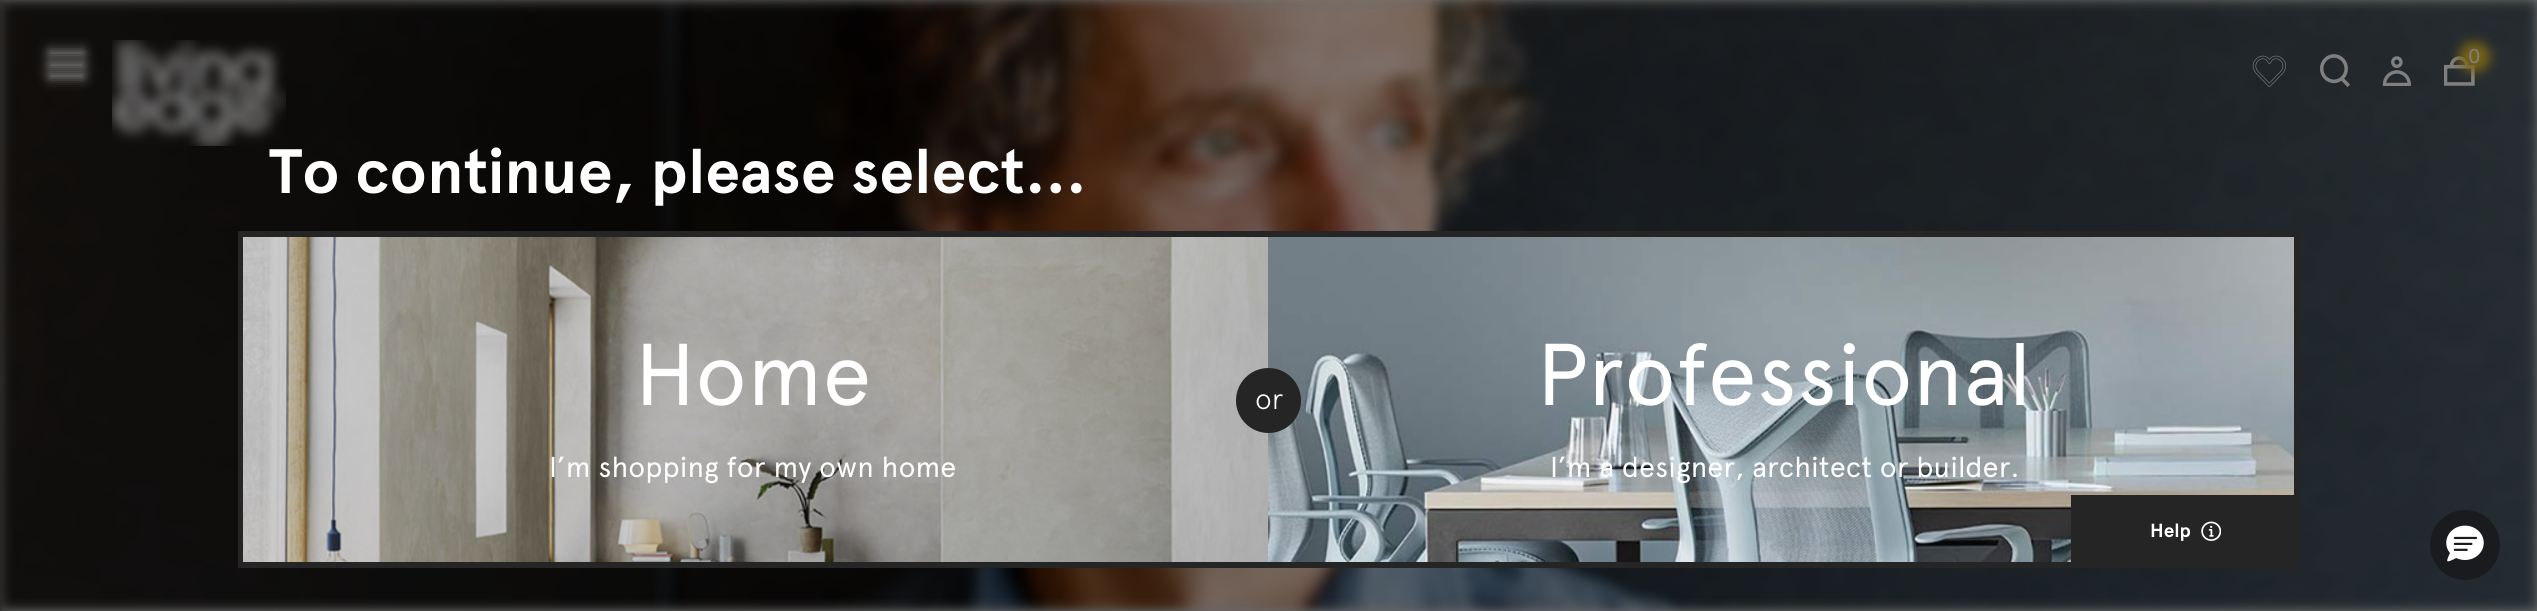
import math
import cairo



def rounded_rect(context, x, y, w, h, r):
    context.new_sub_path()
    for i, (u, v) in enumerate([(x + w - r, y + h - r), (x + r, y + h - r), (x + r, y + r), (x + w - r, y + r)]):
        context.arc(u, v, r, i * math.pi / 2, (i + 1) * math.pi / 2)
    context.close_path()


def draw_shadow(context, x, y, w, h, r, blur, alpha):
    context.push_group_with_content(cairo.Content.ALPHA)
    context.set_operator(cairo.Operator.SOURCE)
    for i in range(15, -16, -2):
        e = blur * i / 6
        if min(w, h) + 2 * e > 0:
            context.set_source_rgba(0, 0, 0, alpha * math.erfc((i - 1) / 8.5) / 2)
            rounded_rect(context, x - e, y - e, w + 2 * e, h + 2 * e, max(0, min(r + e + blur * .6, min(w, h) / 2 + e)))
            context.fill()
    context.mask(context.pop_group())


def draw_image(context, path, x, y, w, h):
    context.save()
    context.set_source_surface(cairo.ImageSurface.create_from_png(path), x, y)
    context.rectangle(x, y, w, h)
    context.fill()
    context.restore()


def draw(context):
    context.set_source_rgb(128 / 255, 128 / 255, 128 / 255)
    context.paint()
    context.set_source_rgb(99 / 255, 100 / 255, 97 / 255)
    draw_shadow(context, 0, 0, 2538, 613, 0, 6, 1)
    draw_image(context, "images/1.png", 0, 0, 2537, 611)
    draw_shadow(context, 0, 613, 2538, 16, 0, 6, 1)
    context.set_source_rgb(15 / 255, 15 / 255, 15 / 255)
    draw_shadow(context, -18, 0, 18, 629, 0, 6, 1)
    context.set_source_rgb(128 / 255, 128 / 255, 128 / 255)
    draw_shadow(context, 50, 74, 33, 4, 0, 6, 1)
    context.save()
    context.set_fill_rule(cairo.FillRule.EVEN_ODD)
    context.new_path()
    context.move_to(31, 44)
    context.line_to(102, 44)
    context.line_to(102, 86)
    context.line_to(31, 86)
    context.close_path()
    context.move_to(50, 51)
    context.line_to(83, 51)
    context.line_to(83, 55)
    context.line_to(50, 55)
    context.close_path()
    context.clip()
    draw_shadow(context, 50, 63, 33, 4, 0, 6, 1)
    context.restore()
    draw_shadow(context, 50, 51, 33, 4, 0, 6, 1)
    draw_image(context, "images/2.png", 112, 40, 174, 106)
    draw_image(context, "images/3.png", 2252, 55, 34, 32)
    draw_image(context, "images/4.png", 2320, 54, 30, 33)
    draw_image(context, "images/5.png", 2382, 56, 29, 30)
    draw_image(context, "images/6.png", 2444, 56, 31, 30)
    context.set_source_rgb(121 / 255, 101 / 255, 24 / 255)
    draw_shadow(context, 2460, 43, 29, 28, 14, 6, 1)
    context.set_source_rgb(37 / 255, 37 / 255, 37 / 255)
    context.rectangle(238, 231, 2062, 337)
    context.fill()
    draw_image(context, "images/7.png", 243, 237, 1025, 325)
    draw_image(context, "images/8.png", 1268, 237, 1026, 325)
    context.arc(1268.5, 400.5, 32.5, 0, 2 * math.pi)
    context.fill()
    context.rectangle(2071, 495, 223, 67)
    context.fill()
    draw_image(context, "images/9.png", 2201, 521, 20, 20)
    context.set_source_rgb(26 / 255, 27 / 255, 30 / 255)
    context.arc(2465, 545, 35, 0, 2 * math.pi)
    context.fill()
    draw_image(context, "images/10.png", 2446, 525, 38, 37)
    context.select_font_face("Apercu")
    context.set_font_size(20)
    context.set_source_rgb(128 / 255, 128 / 255, 128 / 255)
    context.move_to(2468, 63)
    context.show_text("0")
    context.select_font_face("Apercu", cairo.FontSlant.NORMAL, cairo.FontWeight.BOLD)
    context.set_font_size(62.5)
    context.set_source_rgb(1, 1, 1)
    context.move_to(269, 193)
    context.show_text("To continue, please select...")
    context.select_font_face("Apercu")
    context.set_font_size(87.5)
    context.move_to(635, 405)
    context.show_text("Home")
    context.set_font_size(28.75)
    context.move_to(549, 477)
    context.show_text("I’m shopping for my own home")
    context.select_font_face("Apercu Light")
    context.move_to(1255, 409)
    context.show_text("or")
    context.select_font_face("Apercu")
    context.set_font_size(87.5)
    context.move_to(1537, 405)
    context.show_text("Professional")
    context.set_font_size(28.75)
    context.move_to(1550, 477)
    context.show_text("I’m a designer, architect or builder.")
    context.select_font_face("Apercu", cairo.FontSlant.NORMAL, cairo.FontWeight.BOLD)
    context.set_font_size(19)
    context.move_to(2150, 537)
    context.show_text("Help")


surface = cairo.ImageSurface(cairo.Format.RGB24, 2537, 611)
context = cairo.Context(surface)
options = cairo.FontOptions()
options.set_hint_metrics(cairo.HintMetrics.OFF)
options.set_hint_style(cairo.HintStyle.NONE)
context.set_font_options(options)
context.set_miter_limit(4)
draw(context)
surface.write_to_png("out.png")
